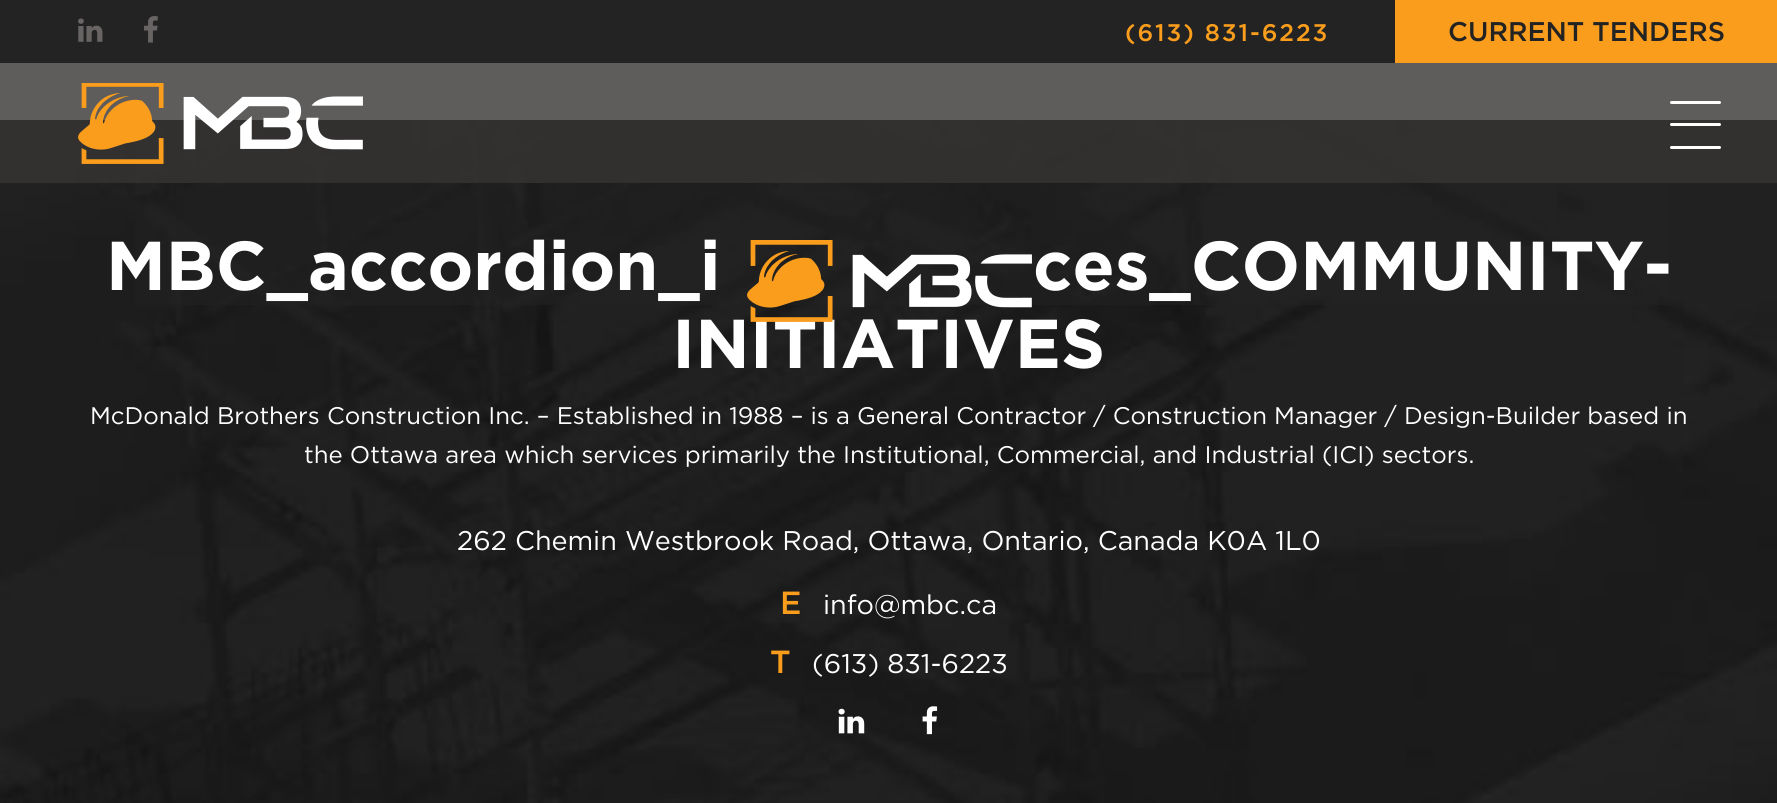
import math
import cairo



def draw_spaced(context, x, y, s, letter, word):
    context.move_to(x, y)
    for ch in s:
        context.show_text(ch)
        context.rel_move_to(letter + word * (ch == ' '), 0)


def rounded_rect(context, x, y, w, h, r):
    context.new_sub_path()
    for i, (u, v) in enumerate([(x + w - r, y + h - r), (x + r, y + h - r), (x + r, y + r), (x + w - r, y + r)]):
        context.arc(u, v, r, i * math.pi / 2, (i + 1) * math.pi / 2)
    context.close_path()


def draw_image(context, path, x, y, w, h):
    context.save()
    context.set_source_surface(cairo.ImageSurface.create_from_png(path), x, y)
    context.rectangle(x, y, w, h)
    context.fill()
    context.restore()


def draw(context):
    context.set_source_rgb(1, 1, 1)
    context.paint()
    context.set_source_rgb(35 / 255, 35 / 255, 35 / 255)
    context.rectangle(0, 0, 1395, 63)
    context.fill()
    draw_image(context, "images/1.png", 78, 18, 25, 24)
    draw_image(context, "images/2.png", 144, 16, 14, 27)
    context.set_source_rgb(250 / 255, 157 / 255, 28 / 255)
    context.rectangle(1395, 0, 382, 63)
    context.fill()
    draw_image(context, "images/4.png", 0, 120, 1777, 683)
    context.set_source_rgba(35 / 255, 35 / 255, 35 / 255, 0.4)
    context.rectangle(135, 120, 1534, 185)
    context.fill()
    context.set_source_rgba(55 / 255, 52 / 255, 52 / 255, 0.8)
    context.rectangle(0, 63, 1777, 120)
    context.fill()
    draw_image(context, "images/3.png", 78, 83, 285, 81)
    context.set_source_rgb(1, 1, 1)
    rounded_rect(context, 1670, 123, 51, 3, 1.5)
    context.fill()
    rounded_rect(context, 1670, 101, 51, 3, 1.5)
    context.fill()
    rounded_rect(context, 1670, 146, 51, 3, 1.5)
    context.fill()
    draw_image(context, "images/6.png", 838, 708, 27, 26)
    draw_image(context, "images/7.png", 922, 706, 16, 29)
    context.select_font_face("Gotham Medium")
    context.set_font_size(24)
    context.set_source_rgb(250 / 255, 157 / 255, 28 / 255)
    draw_spaced(context, 1125, 41, "(613) 831-6223", 1.9, 0)
    context.set_font_size(27)
    context.set_source_rgb(35 / 255, 35 / 255, 35 / 255)
    context.move_to(1448, 41)
    context.show_text("CURRENT TENDERS")
    context.select_font_face("Gotham", cairo.FontSlant.NORMAL, cairo.FontWeight.BOLD)
    context.set_font_size(69)
    context.set_source_rgb(1, 1, 1)
    context.move_to(106, 290)
    context.show_text("MBC_accordion_i")
    context.move_to(1033, 290)
    context.show_text("ces_COMMUNITY-")
    context.move_to(672, 368)
    context.show_text("INITIATIVES")
    draw_image(context, "images/5.png", 747, 240, 285, 82)
    context.select_font_face("Gotham")
    context.set_font_size(24)
    context.move_to(90, 424)
    context.show_text("McDonald Brothers Construction Inc. – Established in 1988 – is a General Contractor / Construction Manager / Design-Builder based in")
    context.move_to(304, 463)
    context.show_text("the Ottawa area which services primarily the Institutional, Commercial, and Industrial (ICI) sectors.")
    context.set_font_size(27)
    context.move_to(457, 550)
    context.show_text("262 Chemin Westbrook Road, Ottawa, Ontario, Canada K0A 1L0")
    context.select_font_face("Gotham Medium")
    context.set_font_size(32)
    context.set_source_rgb(250 / 255, 157 / 255, 28 / 255)
    context.move_to(780, 614)
    context.show_text("E")
    context.select_font_face("Gotham")
    context.set_font_size(27)
    context.set_source_rgb(1, 1, 1)
    context.move_to(823, 614)
    context.show_text("info@mbc.ca")
    context.select_font_face("Gotham Medium")
    context.set_font_size(32)
    context.set_source_rgb(250 / 255, 157 / 255, 28 / 255)
    context.move_to(770, 673)
    context.show_text("T")
    context.select_font_face("Gotham")
    context.set_font_size(27)
    context.set_source_rgb(1, 1, 1)
    context.move_to(812, 673)
    context.show_text("(613) 831-6223")


surface = cairo.ImageSurface(cairo.Format.RGB24, 1777, 803)
context = cairo.Context(surface)
options = cairo.FontOptions()
options.set_hint_metrics(cairo.HintMetrics.OFF)
options.set_hint_style(cairo.HintStyle.NONE)
context.set_font_options(options)
context.set_miter_limit(4)
draw(context)
surface.write_to_png("out.png")
